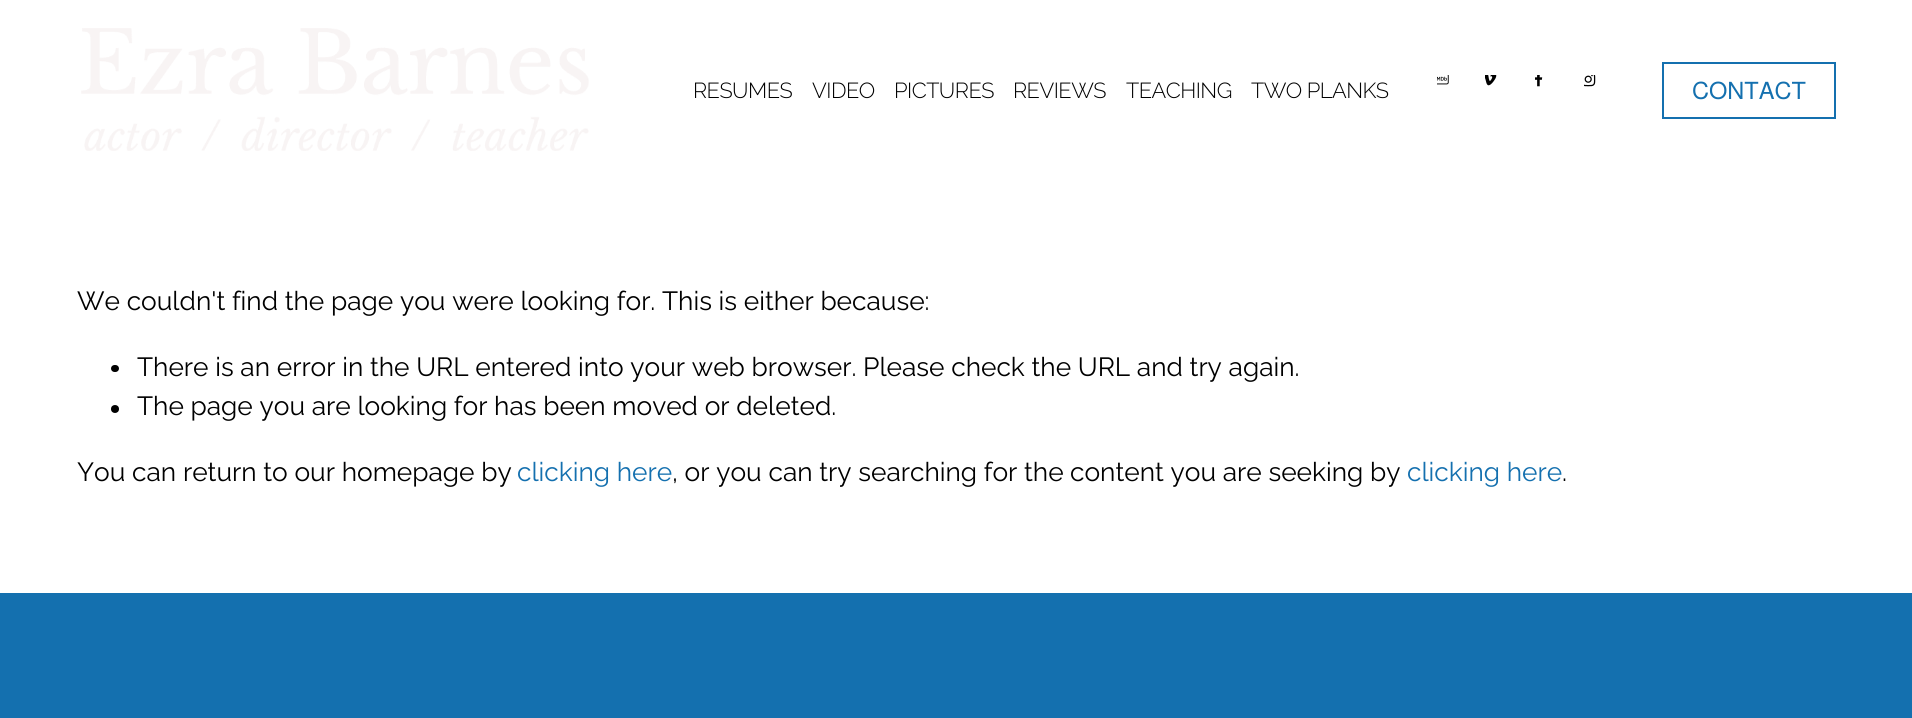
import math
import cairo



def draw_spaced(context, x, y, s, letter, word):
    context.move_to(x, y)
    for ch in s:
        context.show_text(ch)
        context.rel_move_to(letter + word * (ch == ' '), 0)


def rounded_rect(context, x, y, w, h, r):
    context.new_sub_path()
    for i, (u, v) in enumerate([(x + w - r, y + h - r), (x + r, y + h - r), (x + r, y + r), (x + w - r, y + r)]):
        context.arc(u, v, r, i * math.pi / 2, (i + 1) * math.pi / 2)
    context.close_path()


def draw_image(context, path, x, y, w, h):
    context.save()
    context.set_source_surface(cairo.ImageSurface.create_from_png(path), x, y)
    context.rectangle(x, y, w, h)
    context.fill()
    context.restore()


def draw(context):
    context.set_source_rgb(1, 1, 1)
    context.paint()
    draw_image(context, "images/1.png", 81, 28, 508, 123)
    draw_image(context, "images/2.png", 1437, 75, 12, 10)
    draw_image(context, "images/3.png", 1485, 75, 12, 11)
    draw_image(context, "images/4.png", 1535, 75, 8, 12)
    draw_image(context, "images/5.png", 1584, 75, 12, 12)
    context.rectangle(1663, 63, 172, 55)
    context.set_source_rgb(20 / 255, 112 / 255, 175 / 255)
    context.stroke()
    context.set_source_rgb(0, 0, 0)
    rounded_rect(context, 111, 365, 8, 7, 3.5)
    context.fill()
    context.arc(115, 409, 4, 0, 2 * math.pi)
    context.fill()
    context.set_source_rgb(20 / 255, 112 / 255, 175 / 255)
    context.rectangle(0, 593, 1912, 125)
    context.fill()
    context.select_font_face("Raleway Light")
    context.set_font_size(21.75)
    context.set_source_rgb(0, 0, 0)
    draw_spaced(context, 693, 98, "RESUMES", -0.5, 0)
    draw_spaced(context, 812, 98, "VIDEO", -0.5, 0)
    draw_spaced(context, 894, 98, "PICTURES", -0.5, 0)
    draw_spaced(context, 1013, 98, "REVIEWS", -0.5, 0)
    draw_spaced(context, 1126, 98, "TEACHING", -0.5, 0)
    draw_spaced(context, 1251, 98, "TWO PLANKS", -0.5, 0)
    context.select_font_face("Almarai")
    context.set_font_size(24)
    context.set_source_rgb(20 / 255, 112 / 255, 175 / 255)
    context.move_to(1692, 99)
    context.show_text("CONTACT")
    context.select_font_face("Raleway")
    context.set_font_size(26.3)
    context.set_source_rgb(0, 0, 0)
    context.move_to(77, 310)
    context.show_text("We couldn't find the page you were looking for. This is either because:")
    context.move_to(137, 376)
    context.show_text("There is an error in the URL entered into your web browser. Please check the URL and try again.")
    context.move_to(137, 415)
    context.show_text("The page you are looking for has been moved or deleted.")
    context.move_to(77, 481)
    context.show_text("You can return to our homepage by")
    context.set_source_rgb(20 / 255, 112 / 255, 175 / 255)
    context.move_to(517, 481)
    context.show_text("clicking here")
    context.set_source_rgb(0, 0, 0)
    context.move_to(672, 481)
    context.show_text(", or you can try searching for the")
    context.move_to(1070, 481)
    context.show_text("content you are seeking by")
    context.set_source_rgb(20 / 255, 112 / 255, 175 / 255)
    context.move_to(1407, 481)
    context.show_text("clicking here")
    context.set_source_rgb(0, 0, 0)
    context.move_to(1562, 481)
    context.show_text(".")


surface = cairo.ImageSurface(cairo.Format.RGB24, 1912, 718)
context = cairo.Context(surface)
options = cairo.FontOptions()
options.set_hint_metrics(cairo.HintMetrics.OFF)
options.set_hint_style(cairo.HintStyle.NONE)
context.set_font_options(options)
context.set_miter_limit(4)
draw(context)
surface.write_to_png("out.png")
